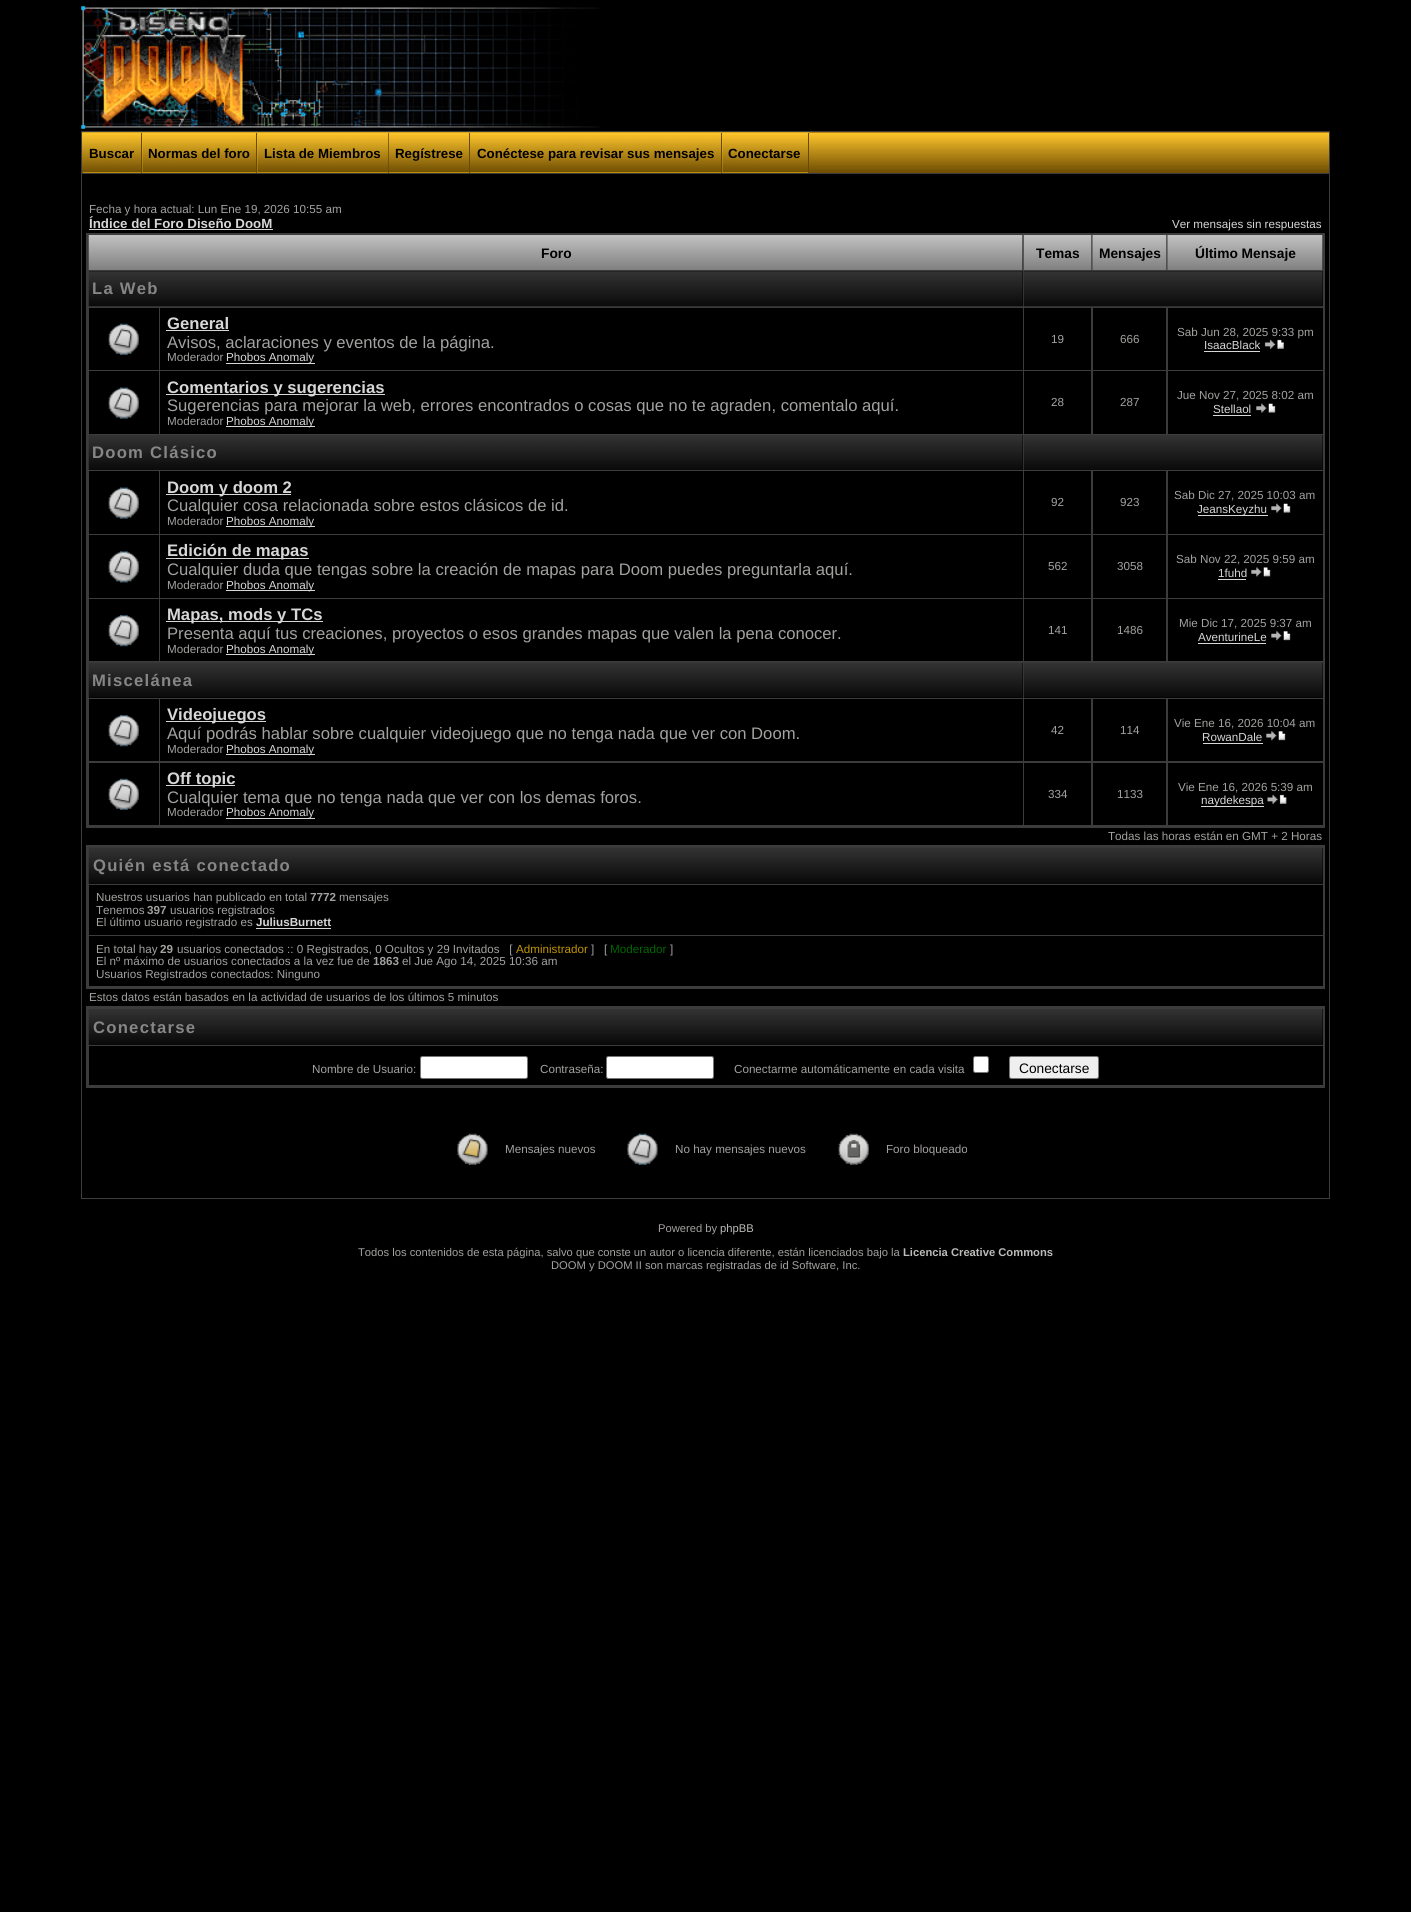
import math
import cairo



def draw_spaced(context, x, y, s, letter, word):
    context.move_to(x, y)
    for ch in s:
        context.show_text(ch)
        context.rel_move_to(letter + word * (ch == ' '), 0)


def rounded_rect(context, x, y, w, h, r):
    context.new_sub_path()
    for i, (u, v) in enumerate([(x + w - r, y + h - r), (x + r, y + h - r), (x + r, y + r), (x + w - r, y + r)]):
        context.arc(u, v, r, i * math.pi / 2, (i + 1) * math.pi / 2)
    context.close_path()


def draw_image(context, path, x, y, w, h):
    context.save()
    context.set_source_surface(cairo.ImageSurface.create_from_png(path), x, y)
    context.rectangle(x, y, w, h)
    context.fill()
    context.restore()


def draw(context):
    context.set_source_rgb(0, 0, 0)
    context.paint()
    draw_image(context, "images/1.png", 81, 6, 519, 123)
    draw_image(context, "images/2.png", 82, 132, 1247, 41)
    context.rectangle(81.5, 131.5, 1248, 42)
    context.set_source_rgb(60 / 255, 60 / 255, 60 / 255)
    context.set_line_width(1)
    context.stroke()
    context.set_source_rgb(1, 204 / 255, 0)
    context.rectangle(83, 133, 175, 40)
    context.fill()
    draw_image(context, "images/3.png", 82, 132, 61, 41)
    draw_image(context, "images/4.png", 142, 132, 116, 41)
    context.rectangle(258, 172, 130, 1)
    context.fill()
    draw_image(context, "images/5.png", 257, 132, 132, 41)
    context.set_source_rgb(107 / 255, 73 / 255, 1 / 255)
    context.rectangle(388, 133, 1, 40)
    context.fill()
    context.set_source_rgb(1, 204 / 255, 0)
    context.rectangle(389, 172, 80, 1)
    context.fill()
    draw_image(context, "images/6.png", 388, 132, 82, 41)
    context.rectangle(470, 133, 253, 40)
    context.fill()
    draw_image(context, "images/7.png", 470, 132, 253, 41)
    context.rectangle(723, 172, 85, 1)
    context.fill()
    draw_image(context, "images/8.png", 722, 132, 87, 41)
    context.set_source_rgb(107 / 255, 73 / 255, 1 / 255)
    context.rectangle(141, 133, 1, 40)
    context.fill()
    context.rectangle(256, 133, 1, 40)
    context.fill()
    context.rectangle(469, 133, 1, 40)
    context.fill()
    context.rectangle(721, 133, 1, 40)
    context.fill()
    context.rectangle(808, 133, 1, 40)
    context.fill()
    context.set_source_rgb(60 / 255, 60 / 255, 60 / 255)
    context.rectangle(1329, 174, 1, 1025)
    context.fill()
    context.rectangle(81, 1198, 1249, 1)
    context.fill()
    context.rectangle(81, 174, 1, 1025)
    context.fill()
    context.set_source_rgb(215 / 255, 215 / 255, 215 / 255)
    context.rectangle(89, 229, 184, 1)
    context.fill()
    context.set_source_rgb(60 / 255, 60 / 255, 60 / 255)
    context.rectangle(86, 233, 1239, 595)
    context.fill()
    context.set_source_rgb(0, 0, 0)
    context.rectangle(1022, 235, 1, 35)
    context.fill()
    draw_image(context, "images/9.png", 88, 235, 935, 35)
    draw_image(context, "images/10.png", 1023, 235, 69, 35)
    draw_image(context, "images/11.png", 1092, 235, 75, 35)
    context.rectangle(1322, 235, 1, 35)
    context.fill()
    draw_image(context, "images/12.png", 1167, 235, 156, 35)
    context.rectangle(89, 271, 934, 35)
    context.fill()
    draw_image(context, "images/13.png", 88, 271, 935, 36)
    context.rectangle(1024, 271, 299, 35)
    context.fill()
    draw_image(context, "images/14.png", 1023, 271, 300, 36)
    context.rectangle(89, 308, 70, 62)
    context.fill()
    draw_image(context, "images/15.png", 108, 323, 31, 32)
    context.rectangle(160, 308, 863, 62)
    context.fill()
    context.set_source_rgb(215 / 255, 215 / 255, 215 / 255)
    context.rectangle(166, 330, 63, 1)
    context.fill()
    context.rectangle(226, 363, 89, 1)
    context.fill()
    context.set_source_rgb(0, 0, 0)
    context.rectangle(1024, 308, 67, 62)
    context.fill()
    context.rectangle(1093, 308, 73, 62)
    context.fill()
    context.rectangle(1168, 308, 155, 62)
    context.fill()
    context.set_source_rgb(215 / 255, 215 / 255, 215 / 255)
    context.rectangle(1204, 351, 56, 1)
    context.fill()
    draw_image(context, "images/16.png", 1264, 339, 20, 10)
    context.set_source_rgb(0, 0, 0)
    context.rectangle(89, 371, 70, 63)
    context.fill()
    draw_image(context, "images/17.png", 108, 387, 31, 32)
    context.rectangle(160, 371, 863, 63)
    context.fill()
    context.set_source_rgb(215 / 255, 215 / 255, 215 / 255)
    context.rectangle(166, 394, 219, 1)
    context.fill()
    context.rectangle(226, 426, 89, 1)
    context.fill()
    context.set_source_rgb(0, 0, 0)
    context.rectangle(1024, 371, 67, 63)
    context.fill()
    context.rectangle(1093, 371, 73, 63)
    context.fill()
    context.rectangle(1168, 371, 155, 63)
    context.fill()
    context.set_source_rgb(215 / 255, 215 / 255, 215 / 255)
    context.rectangle(1213, 415, 38, 1)
    context.fill()
    draw_image(context, "images/18.png", 1256, 403, 20, 10)
    context.set_source_rgb(0, 0, 0)
    context.rectangle(1022, 435, 1, 35)
    context.fill()
    draw_image(context, "images/19.png", 88, 435, 935, 35)
    context.rectangle(1322, 435, 1, 35)
    context.fill()
    draw_image(context, "images/20.png", 1023, 435, 300, 35)
    context.rectangle(89, 471, 70, 63)
    context.fill()
    draw_image(context, "images/17.png", 108, 487, 31, 32)
    context.rectangle(160, 471, 863, 63)
    context.fill()
    context.set_source_rgb(215 / 255, 215 / 255, 215 / 255)
    context.rectangle(166, 494, 125, 1)
    context.fill()
    context.rectangle(226, 526, 89, 1)
    context.fill()
    context.set_source_rgb(0, 0, 0)
    context.rectangle(1024, 471, 67, 63)
    context.fill()
    context.rectangle(1093, 471, 73, 63)
    context.fill()
    context.rectangle(1168, 471, 155, 63)
    context.fill()
    context.set_source_rgb(215 / 255, 215 / 255, 215 / 255)
    context.rectangle(1198, 515, 70, 1)
    context.fill()
    draw_image(context, "images/21.png", 1271, 503, 20, 10)
    context.set_source_rgb(0, 0, 0)
    context.rectangle(89, 535, 70, 63)
    context.fill()
    draw_image(context, "images/22.png", 108, 551, 31, 32)
    context.rectangle(160, 535, 863, 63)
    context.fill()
    context.set_source_rgb(215 / 255, 215 / 255, 215 / 255)
    context.rectangle(166, 558, 143, 1)
    context.fill()
    context.rectangle(226, 590, 89, 1)
    context.fill()
    context.set_source_rgb(0, 0, 0)
    context.rectangle(1024, 535, 67, 63)
    context.fill()
    context.rectangle(1093, 535, 73, 63)
    context.fill()
    context.rectangle(1168, 535, 155, 63)
    context.fill()
    context.set_source_rgb(215 / 255, 215 / 255, 215 / 255)
    context.rectangle(1218, 579, 28, 1)
    context.fill()
    draw_image(context, "images/23.png", 1251, 567, 20, 10)
    context.set_source_rgb(0, 0, 0)
    context.rectangle(89, 599, 70, 62)
    context.fill()
    draw_image(context, "images/24.png", 108, 615, 31, 32)
    context.rectangle(160, 599, 863, 62)
    context.fill()
    context.set_source_rgb(215 / 255, 215 / 255, 215 / 255)
    context.rectangle(166, 621, 157, 1)
    context.fill()
    context.rectangle(226, 654, 89, 1)
    context.fill()
    context.set_source_rgb(0, 0, 0)
    context.rectangle(1024, 599, 67, 62)
    context.fill()
    context.rectangle(1093, 599, 73, 62)
    context.fill()
    context.rectangle(1168, 599, 155, 62)
    context.fill()
    context.set_source_rgb(215 / 255, 215 / 255, 215 / 255)
    context.rectangle(1198, 643, 68, 1)
    context.fill()
    draw_image(context, "images/25.png", 1271, 631, 20, 10)
    context.set_source_rgb(0, 0, 0)
    context.rectangle(89, 663, 934, 35)
    context.fill()
    draw_image(context, "images/26.png", 88, 662, 935, 36)
    context.rectangle(1024, 663, 299, 35)
    context.fill()
    draw_image(context, "images/27.png", 1023, 662, 300, 36)
    context.rectangle(89, 699, 70, 62)
    context.fill()
    draw_image(context, "images/24.png", 108, 715, 31, 32)
    context.rectangle(160, 699, 863, 62)
    context.fill()
    context.set_source_rgb(215 / 255, 215 / 255, 215 / 255)
    context.rectangle(166, 721, 100, 1)
    context.fill()
    context.rectangle(226, 754, 89, 1)
    context.fill()
    context.set_source_rgb(0, 0, 0)
    context.rectangle(1024, 699, 67, 62)
    context.fill()
    context.rectangle(1093, 699, 73, 62)
    context.fill()
    context.rectangle(1168, 699, 155, 62)
    context.fill()
    context.set_source_rgb(215 / 255, 215 / 255, 215 / 255)
    context.rectangle(1203, 743, 60, 1)
    context.fill()
    draw_image(context, "images/25.png", 1266, 731, 20, 10)
    context.set_source_rgb(0, 0, 0)
    context.rectangle(89, 763, 70, 62)
    context.fill()
    draw_image(context, "images/28.png", 108, 778, 31, 32)
    context.rectangle(160, 763, 863, 62)
    context.fill()
    context.set_source_rgb(215 / 255, 215 / 255, 215 / 255)
    context.rectangle(166, 785, 69, 1)
    context.fill()
    context.rectangle(226, 818, 89, 1)
    context.fill()
    context.set_source_rgb(0, 0, 0)
    context.rectangle(1024, 763, 67, 62)
    context.fill()
    context.rectangle(1093, 763, 73, 62)
    context.fill()
    context.rectangle(1168, 763, 155, 62)
    context.fill()
    context.set_source_rgb(215 / 255, 215 / 255, 215 / 255)
    context.rectangle(1201, 806, 63, 1)
    context.fill()
    draw_image(context, "images/29.png", 1267, 794, 20, 10)
    context.set_source_rgb(60 / 255, 60 / 255, 60 / 255)
    context.rectangle(86, 845, 1239, 144)
    context.fill()
    context.set_source_rgb(0, 0, 0)
    context.rectangle(89, 848, 1234, 36)
    context.fill()
    draw_image(context, "images/30.png", 88, 847, 1235, 37)
    context.rectangle(89, 885, 1234, 50)
    context.fill()
    context.set_source_rgb(215 / 255, 215 / 255, 215 / 255)
    context.rectangle(256, 928, 75, 1)
    context.fill()
    context.set_source_rgb(0, 0, 0)
    context.rectangle(89, 936, 1234, 50)
    context.fill()
    context.set_source_rgb(60 / 255, 60 / 255, 60 / 255)
    context.rectangle(86, 1006, 1239, 82)
    context.fill()
    context.set_source_rgb(0, 0, 0)
    context.rectangle(1322, 1009, 1, 36)
    context.fill()
    draw_image(context, "images/31.png", 88, 1009, 1235, 36)
    context.rectangle(89, 1046, 1234, 39)
    context.fill()
    context.set_source_rgb(1, 1, 1)
    rounded_rect(context, 420.5, 1056.5, 107, 22, 2)
    context.fill_preserve()
    context.set_source_rgb(118 / 255, 118 / 255, 118 / 255)
    context.stroke()
    context.set_source_rgb(1, 1, 1)
    rounded_rect(context, 606.5, 1056.5, 107, 22, 2)
    context.fill_preserve()
    context.set_source_rgb(118 / 255, 118 / 255, 118 / 255)
    context.stroke()
    context.set_source_rgb(1, 1, 1)
    rounded_rect(context, 973.5, 1056.5, 15, 16, 2)
    context.fill_preserve()
    context.set_source_rgb(118 / 255, 118 / 255, 118 / 255)
    context.stroke()
    context.set_source_rgb(239 / 255, 239 / 255, 239 / 255)
    rounded_rect(context, 1009.5, 1056.5, 89, 22, 2)
    context.fill_preserve()
    context.set_source_rgb(118 / 255, 118 / 255, 118 / 255)
    context.stroke()
    draw_image(context, "images/32.png", 457, 1133, 31, 32)
    draw_image(context, "images/33.png", 627, 1133, 31, 32)
    draw_image(context, "images/34.png", 838, 1133, 31, 32)
    context.select_font_face("Liberation Sans", cairo.FontSlant.NORMAL, cairo.FontWeight.BOLD)
    context.set_font_size(13.3)
    context.set_source_rgb(0, 0, 0)
    context.move_to(89, 158)
    context.show_text("Buscar")
    context.move_to(148, 158)
    context.show_text("Normas del foro")
    context.move_to(264, 158)
    context.show_text("Lista de Miembros")
    context.move_to(395, 158)
    context.show_text("Regístrese")
    context.move_to(477, 158)
    context.show_text("Conéctese para revisar sus mensajes")
    context.move_to(728, 158)
    context.show_text("Conectarse")
    context.select_font_face("Liberation Sans")
    context.set_font_size(11.65)
    context.set_source_rgb(163 / 255, 162 / 255, 160 / 255)
    context.move_to(89, 213)
    context.show_text("Fecha y hora actual: Lun Ene 19, 2026 10:55 am")
    context.select_font_face("Liberation Sans", cairo.FontSlant.NORMAL, cairo.FontWeight.BOLD)
    context.set_font_size(13.3)
    context.set_source_rgb(215 / 255, 215 / 255, 215 / 255)
    context.move_to(89, 228)
    context.show_text("Índice del Foro Diseño DooM")
    context.select_font_face("Liberation Sans")
    context.set_font_size(11.65)
    context.move_to(1172, 228)
    context.show_text("Ver mensajes sin respuestas")
    context.select_font_face("Liberation Sans", cairo.FontSlant.NORMAL, cairo.FontWeight.BOLD)
    context.set_font_size(13.75)
    context.set_source_rgb(0, 0, 0)
    context.move_to(541, 258)
    context.show_text("Foro")
    context.move_to(1036, 258)
    context.show_text("Temas")
    context.move_to(1099, 258)
    context.show_text("Mensajes")
    context.move_to(1195, 258)
    context.show_text("Último Mensaje")
    context.set_font_size(16.65)
    context.set_source_rgb(134 / 255, 134 / 255, 134 / 255)
    draw_spaced(context, 92, 294, "La Web", 1.25, 0)
    context.set_source_rgb(215 / 255, 215 / 255, 215 / 255)
    context.move_to(167, 329)
    context.show_text("General")
    context.select_font_face("Liberation Sans")
    context.set_source_rgb(163 / 255, 162 / 255, 160 / 255)
    context.move_to(167, 348)
    context.show_text("Avisos, aclaraciones y eventos de la página.")
    context.set_font_size(11.65)
    context.move_to(167, 361)
    context.show_text("Moderador")
    context.set_source_rgb(215 / 255, 215 / 255, 215 / 255)
    context.move_to(226, 361)
    context.show_text("Phobos Anomaly")
    context.set_source_rgb(163 / 255, 162 / 255, 160 / 255)
    context.move_to(1051, 343)
    context.show_text("19")
    context.move_to(1120, 343)
    context.show_text("666")
    context.move_to(1177, 336)
    context.show_text("Sab Jun 28, 2025 9:33 pm")
    context.set_source_rgb(215 / 255, 215 / 255, 215 / 255)
    context.move_to(1204, 349)
    context.show_text("IsaacBlack")
    context.select_font_face("Liberation Sans", cairo.FontSlant.NORMAL, cairo.FontWeight.BOLD)
    context.set_font_size(16.65)
    context.move_to(167, 393)
    context.show_text("Comentarios y sugerencias")
    context.select_font_face("Liberation Sans")
    context.set_source_rgb(163 / 255, 162 / 255, 160 / 255)
    context.move_to(167, 411)
    context.show_text("Sugerencias para mejorar la web, errores encontrados o cosas que no te agraden, comentalo aquí.")
    context.set_font_size(11.65)
    context.move_to(167, 425)
    context.show_text("Moderador")
    context.set_source_rgb(215 / 255, 215 / 255, 215 / 255)
    context.move_to(226, 425)
    context.show_text("Phobos Anomaly")
    context.set_source_rgb(163 / 255, 162 / 255, 160 / 255)
    context.move_to(1051, 406)
    context.show_text("28")
    context.move_to(1120, 406)
    context.show_text("287")
    context.move_to(1177, 399)
    context.show_text("Jue Nov 27, 2025 8:02 am")
    context.set_source_rgb(215 / 255, 215 / 255, 215 / 255)
    context.move_to(1213, 413)
    context.show_text("Stellaol")
    context.select_font_face("Liberation Sans", cairo.FontSlant.NORMAL, cairo.FontWeight.BOLD)
    context.set_font_size(16.65)
    context.set_source_rgb(134 / 255, 134 / 255, 134 / 255)
    draw_spaced(context, 92, 458, "Doom Clásico", 1.25, 0)
    context.set_source_rgb(215 / 255, 215 / 255, 215 / 255)
    context.move_to(167, 493)
    context.show_text("Doom y doom 2")
    context.select_font_face("Liberation Sans")
    context.set_source_rgb(163 / 255, 162 / 255, 160 / 255)
    context.move_to(167, 511)
    context.show_text("Cualquier cosa relacionada sobre estos clásicos de id.")
    context.set_font_size(11.65)
    context.move_to(167, 525)
    context.show_text("Moderador")
    context.set_source_rgb(215 / 255, 215 / 255, 215 / 255)
    context.move_to(226, 525)
    context.show_text("Phobos Anomaly")
    context.set_source_rgb(163 / 255, 162 / 255, 160 / 255)
    context.move_to(1051, 506)
    context.show_text("92")
    context.move_to(1120, 506)
    context.show_text("923")
    context.move_to(1174, 499)
    context.show_text("Sab Dic 27, 2025 10:03 am")
    context.set_source_rgb(215 / 255, 215 / 255, 215 / 255)
    context.move_to(1197, 513)
    context.show_text("JeansKeyzhu")
    context.select_font_face("Liberation Sans", cairo.FontSlant.NORMAL, cairo.FontWeight.BOLD)
    context.set_font_size(16.65)
    context.move_to(167, 556)
    context.show_text("Edición de mapas")
    context.select_font_face("Liberation Sans")
    context.set_source_rgb(163 / 255, 162 / 255, 160 / 255)
    context.move_to(167, 575)
    context.show_text("Cualquier duda que tengas sobre la creación de mapas para Doom puedes preguntarla aquí.")
    context.set_font_size(11.65)
    context.move_to(167, 589)
    context.show_text("Moderador")
    context.set_source_rgb(215 / 255, 215 / 255, 215 / 255)
    context.move_to(226, 589)
    context.show_text("Phobos Anomaly")
    context.set_source_rgb(163 / 255, 162 / 255, 160 / 255)
    context.move_to(1048, 570)
    context.show_text("562")
    context.move_to(1117, 570)
    context.show_text("3058")
    context.move_to(1176, 563)
    context.show_text("Sab Nov 22, 2025 9:59 am")
    context.set_source_rgb(215 / 255, 215 / 255, 215 / 255)
    context.move_to(1218, 577)
    context.show_text("1fuhd")
    context.select_font_face("Liberation Sans", cairo.FontSlant.NORMAL, cairo.FontWeight.BOLD)
    context.set_font_size(16.65)
    context.move_to(167, 620)
    context.show_text("Mapas, mods y TCs")
    context.select_font_face("Liberation Sans")
    context.set_source_rgb(163 / 255, 162 / 255, 160 / 255)
    context.move_to(167, 639)
    context.show_text("Presenta aquí tus creaciones, proyectos o esos grandes mapas que valen la pena conocer.")
    context.set_font_size(11.65)
    context.move_to(167, 653)
    context.show_text("Moderador")
    context.set_source_rgb(215 / 255, 215 / 255, 215 / 255)
    context.move_to(226, 653)
    context.show_text("Phobos Anomaly")
    context.set_source_rgb(163 / 255, 162 / 255, 160 / 255)
    context.move_to(1048, 634)
    context.show_text("141")
    context.move_to(1117, 634)
    context.show_text("1486")
    context.move_to(1179, 627)
    context.show_text("Mie Dic 17, 2025 9:37 am")
    context.set_source_rgb(215 / 255, 215 / 255, 215 / 255)
    context.move_to(1198, 641)
    context.show_text("AventurineLe")
    context.select_font_face("Liberation Sans", cairo.FontSlant.NORMAL, cairo.FontWeight.BOLD)
    context.set_font_size(16.65)
    context.set_source_rgb(134 / 255, 134 / 255, 134 / 255)
    draw_spaced(context, 92, 686, "Miscelánea", 1.25, 0)
    context.set_source_rgb(215 / 255, 215 / 255, 215 / 255)
    context.move_to(167, 720)
    context.show_text("Videojuegos")
    context.select_font_face("Liberation Sans")
    context.set_source_rgb(163 / 255, 162 / 255, 160 / 255)
    context.move_to(167, 739)
    context.show_text("Aquí podrás hablar sobre cualquier videojuego que no tenga nada que ver con Doom.")
    context.set_font_size(11.65)
    context.move_to(167, 753)
    context.show_text("Moderador")
    context.set_source_rgb(215 / 255, 215 / 255, 215 / 255)
    context.move_to(226, 753)
    context.show_text("Phobos Anomaly")
    context.set_source_rgb(163 / 255, 162 / 255, 160 / 255)
    context.move_to(1051, 734)
    context.show_text("42")
    context.move_to(1120, 734)
    context.show_text("114")
    context.move_to(1174, 727)
    context.show_text("Vie Ene 16, 2026 10:04 am")
    context.set_source_rgb(215 / 255, 215 / 255, 215 / 255)
    context.move_to(1202, 741)
    context.show_text("RowanDale")
    context.select_font_face("Liberation Sans", cairo.FontSlant.NORMAL, cairo.FontWeight.BOLD)
    context.set_font_size(16.65)
    context.move_to(167, 784)
    context.show_text("Off topic")
    context.select_font_face("Liberation Sans")
    context.set_source_rgb(163 / 255, 162 / 255, 160 / 255)
    context.move_to(167, 803)
    context.show_text("Cualquier tema que no tenga nada que ver con los demas foros.")
    context.set_font_size(11.65)
    context.move_to(167, 816)
    context.show_text("Moderador")
    context.set_source_rgb(215 / 255, 215 / 255, 215 / 255)
    context.move_to(226, 816)
    context.show_text("Phobos Anomaly")
    context.set_source_rgb(163 / 255, 162 / 255, 160 / 255)
    context.move_to(1048, 798)
    context.show_text("334")
    context.move_to(1117, 798)
    context.show_text("1133")
    context.move_to(1178, 791)
    context.show_text("Vie Ene 16, 2026 5:39 am")
    context.set_source_rgb(215 / 255, 215 / 255, 215 / 255)
    context.move_to(1201, 804)
    context.show_text("naydekespa")
    context.set_source_rgb(163 / 255, 162 / 255, 160 / 255)
    context.move_to(1108, 840)
    context.show_text("Todas las horas están en GMT + 2 Horas")
    context.select_font_face("Liberation Sans", cairo.FontSlant.NORMAL, cairo.FontWeight.BOLD)
    context.set_font_size(16.65)
    context.set_source_rgb(134 / 255, 134 / 255, 134 / 255)
    draw_spaced(context, 93, 871, "Quién está conectado", 1.25, 0)
    context.select_font_face("Liberation Sans")
    context.set_font_size(11.65)
    context.set_source_rgb(163 / 255, 162 / 255, 160 / 255)
    context.move_to(96, 901)
    context.show_text("Nuestros usuarios han publicado en total")
    context.select_font_face("Liberation Sans", cairo.FontSlant.NORMAL, cairo.FontWeight.BOLD)
    context.move_to(310, 901)
    context.show_text("7772")
    context.select_font_face("Liberation Sans")
    context.move_to(339, 901)
    context.show_text("mensajes")
    context.move_to(96, 914)
    context.show_text("Tenemos")
    context.select_font_face("Liberation Sans", cairo.FontSlant.NORMAL, cairo.FontWeight.BOLD)
    context.move_to(147, 914)
    context.show_text("397")
    context.select_font_face("Liberation Sans")
    context.move_to(170, 914)
    context.show_text("usuarios registrados")
    context.move_to(96, 926)
    context.show_text("El último usuario registrado es")
    context.select_font_face("Liberation Sans", cairo.FontSlant.NORMAL, cairo.FontWeight.BOLD)
    context.set_source_rgb(215 / 255, 215 / 255, 215 / 255)
    context.move_to(256, 926)
    context.show_text("JuliusBurnett")
    context.select_font_face("Liberation Sans")
    context.set_source_rgb(163 / 255, 162 / 255, 160 / 255)
    context.move_to(96, 953)
    context.show_text("En total hay")
    context.select_font_face("Liberation Sans", cairo.FontSlant.NORMAL, cairo.FontWeight.BOLD)
    context.move_to(160, 953)
    context.show_text("29")
    context.select_font_face("Liberation Sans")
    context.move_to(177, 953)
    context.show_text("usuarios conectados :: 0 Registrados, 0 Ocultos y 29 Invitados   [")
    context.set_source_rgb(192 / 255, 149 / 255, 1 / 255)
    context.move_to(516, 953)
    context.show_text("Administrador")
    context.set_source_rgb(163 / 255, 162 / 255, 160 / 255)
    context.move_to(591, 953)
    context.show_text("]   [")
    context.set_source_rgb(0, 102 / 255, 0)
    context.move_to(610, 953)
    context.show_text("Moderador")
    context.set_source_rgb(163 / 255, 162 / 255, 160 / 255)
    context.move_to(670, 953)
    context.show_text("]")
    context.move_to(96, 965)
    context.show_text("El nº máximo de usuarios conectados a la vez fue de")
    context.select_font_face("Liberation Sans", cairo.FontSlant.NORMAL, cairo.FontWeight.BOLD)
    context.move_to(373, 965)
    context.show_text("1863")
    context.select_font_face("Liberation Sans")
    context.move_to(402, 965)
    context.show_text("el Jue Ago 14, 2025 10:36 am")
    context.move_to(96, 978)
    context.show_text("Usuarios Registrados conectados: Ninguno")
    context.move_to(89, 1001)
    context.show_text("Estos datos están basados en la actividad de usuarios de los últimos 5 minutos")
    context.select_font_face("Liberation Sans", cairo.FontSlant.NORMAL, cairo.FontWeight.BOLD)
    context.set_font_size(16.65)
    context.set_source_rgb(134 / 255, 134 / 255, 134 / 255)
    draw_spaced(context, 93, 1033, "Conectarse", 1.25, 0)
    context.select_font_face("Liberation Sans")
    context.set_font_size(11.65)
    context.set_source_rgb(163 / 255, 162 / 255, 160 / 255)
    context.move_to(312, 1073)
    context.show_text("Nombre de Usuario:")
    context.move_to(540, 1073)
    context.show_text("Contraseña:")
    context.move_to(734, 1073)
    context.show_text("Conectarme automáticamente en cada visita")
    context.set_font_size(13.75)
    context.set_source_rgb(0, 0, 0)
    context.move_to(1019, 1073)
    context.show_text("Conectarse")
    context.set_font_size(11.65)
    context.set_source_rgb(163 / 255, 162 / 255, 160 / 255)
    context.move_to(505, 1153)
    context.show_text("Mensajes nuevos")
    context.move_to(675, 1153)
    context.show_text("No hay mensajes nuevos")
    context.move_to(886, 1153)
    context.show_text("Foro bloqueado")
    context.set_font_size(11.2)
    context.move_to(658, 1232)
    context.show_text("Powered by")
    context.set_source_rgb(188 / 255, 187 / 255, 186 / 255)
    context.move_to(720, 1232)
    context.show_text("phpBB")
    context.set_source_rgb(163 / 255, 162 / 255, 160 / 255)
    context.move_to(358, 1256)
    context.show_text("Todos los contenidos de esta página, salvo que conste un autor o licencia diferente, están licenciados bajo la")
    context.select_font_face("Liberation Sans", cairo.FontSlant.NORMAL, cairo.FontWeight.BOLD)
    context.set_source_rgb(188 / 255, 187 / 255, 186 / 255)
    context.move_to(903, 1256)
    context.show_text("Licencia Creative Commons")
    context.select_font_face("Liberation Sans")
    context.set_source_rgb(163 / 255, 162 / 255, 160 / 255)
    context.move_to(551, 1269)
    context.show_text("DOOM y DOOM II son marcas registradas de id Software, Inc.")


surface = cairo.ImageSurface(cairo.Format.RGB24, 1411, 1912)
context = cairo.Context(surface)
options = cairo.FontOptions()
options.set_hint_metrics(cairo.HintMetrics.OFF)
options.set_hint_style(cairo.HintStyle.NONE)
context.set_font_options(options)
context.set_miter_limit(4)
draw(context)
surface.write_to_png("out.png")
